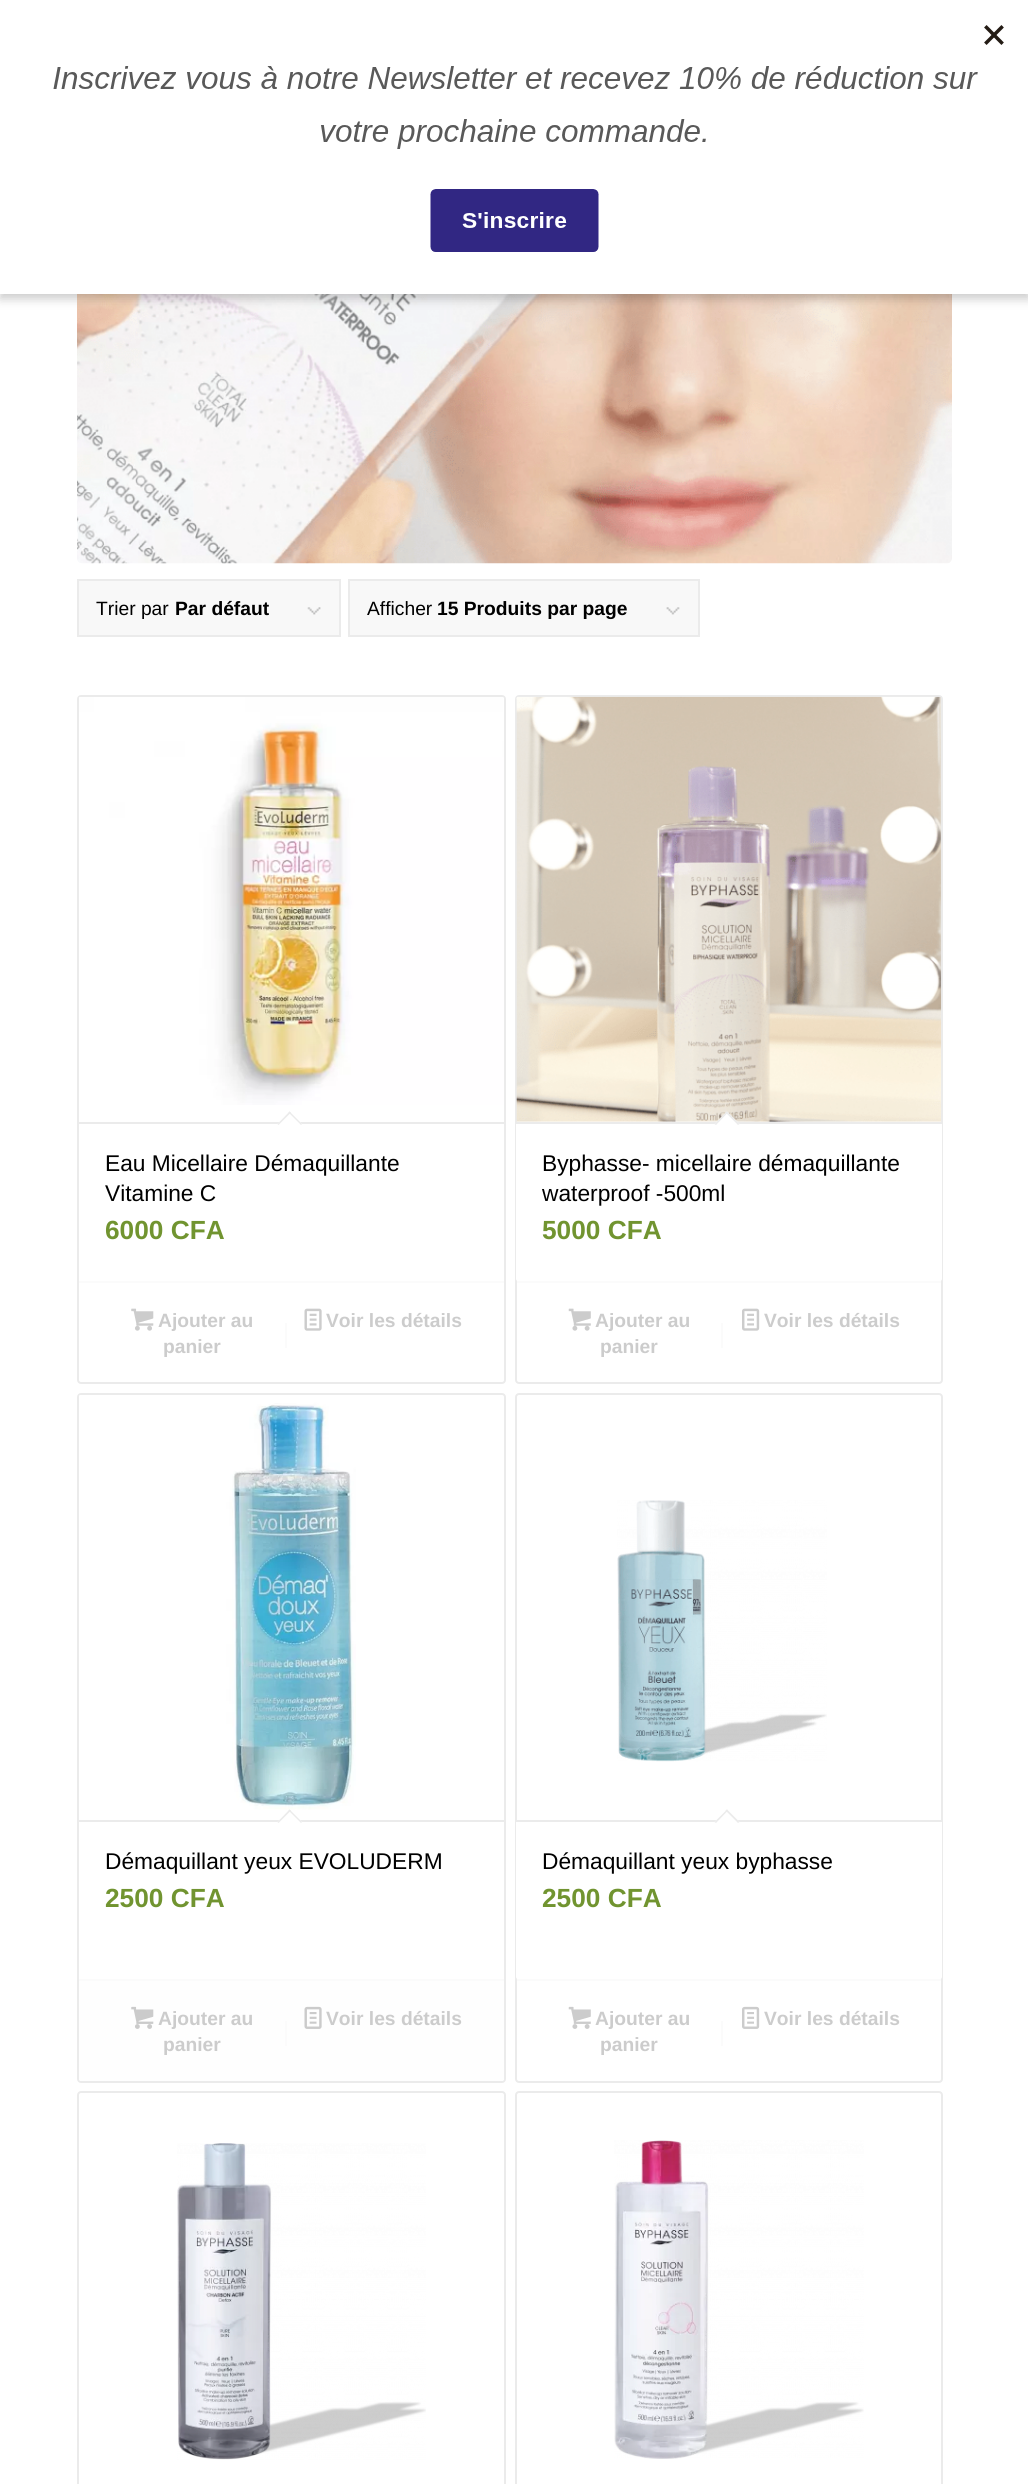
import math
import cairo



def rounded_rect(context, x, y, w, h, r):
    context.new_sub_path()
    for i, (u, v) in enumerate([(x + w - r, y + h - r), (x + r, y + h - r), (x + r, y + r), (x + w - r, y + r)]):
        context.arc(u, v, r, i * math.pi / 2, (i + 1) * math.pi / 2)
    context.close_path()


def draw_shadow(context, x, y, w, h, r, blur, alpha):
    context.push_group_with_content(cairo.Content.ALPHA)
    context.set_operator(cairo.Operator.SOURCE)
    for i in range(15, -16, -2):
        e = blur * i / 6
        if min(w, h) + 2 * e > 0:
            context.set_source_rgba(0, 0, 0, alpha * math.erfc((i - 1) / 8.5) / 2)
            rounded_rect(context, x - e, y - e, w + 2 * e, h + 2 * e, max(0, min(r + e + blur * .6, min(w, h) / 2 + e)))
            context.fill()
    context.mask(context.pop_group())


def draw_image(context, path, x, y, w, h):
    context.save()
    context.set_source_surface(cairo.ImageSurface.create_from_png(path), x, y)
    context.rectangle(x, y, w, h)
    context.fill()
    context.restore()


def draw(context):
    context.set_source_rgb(1, 1, 1)
    context.paint()
    draw_image(context, "images/2.png", 77, 294, 875, 270)
    context.set_source_rgb(0, 0, 0)
    draw_shadow(context, 0, 5, 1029, 294, 0, 5, 0.2)
    context.set_source_rgb(1, 1, 1)
    context.rectangle(0, 0, 1028, 294)
    context.fill()
    draw_image(context, "images/1.png", 53, 25, 951, 227)
    context.set_source_rgb(248 / 255, 248 / 255, 248 / 255)
    context.rectangle(79, 581, 260, 54)
    context.fill()
    draw_image(context, "images/3.png", 307, 607, 14, 8)
    context.rectangle(78, 580, 262, 56)
    context.set_source_rgb(235 / 255, 235 / 255, 235 / 255)
    context.stroke()
    context.set_source_rgb(248 / 255, 248 / 255, 248 / 255)
    context.rectangle(350, 581, 348, 54)
    context.fill()
    draw_image(context, "images/4.png", 666, 607, 14, 8)
    context.rectangle(349, 580, 350, 56)
    context.set_source_rgb(235 / 255, 235 / 255, 235 / 255)
    context.stroke()
    rounded_rect(context, 78, 696, 427, 687, 3)
    context.stroke()
    draw_image(context, "images/5.png", 79, 697, 425, 408)
    context.rectangle(79, 1122, 425, 2)
    context.fill()
    context.set_source_rgb(1, 1, 1)
    context.new_path()
    context.move_to(289.5, 1111.5)
    context.line_to(302, 1124)
    context.line_to(289.5, 1136)
    context.line_to(277.5, 1124)
    context.close_path()
    context.fill()
    context.set_source_rgb(235 / 255, 235 / 255, 235 / 255)
    context.new_path()
    context.move_to(289.5, 1111.5)
    context.line_to(302, 1124)
    context.line_to(301, 1125)
    context.line_to(288.5, 1112.5)
    context.close_path()
    context.fill()
    context.new_path()
    context.move_to(289.5, 1111.5)
    context.line_to(291, 1112.5)
    context.line_to(278.5, 1125)
    context.line_to(277.5, 1124)
    context.close_path()
    context.fill()
    context.set_source_rgb(251 / 255, 251 / 255, 251 / 255)
    context.rectangle(79, 1281, 425, 2)
    context.fill()
    draw_image(context, "images/6.png", 131, 1308, 23, 23)
    context.rectangle(285, 1323, 2, 25)
    context.fill()
    draw_image(context, "images/7.png", 304, 1308, 18, 23)
    rounded_rect(context, 516, 696, 426, 687, 3)
    context.set_source_rgb(235 / 255, 235 / 255, 235 / 255)
    context.stroke()
    draw_image(context, "images/8.png", 516, 696, 426, 426)
    context.set_source_rgb(1, 1, 1)
    context.new_path()
    context.move_to(516, 1122)
    context.line_to(942, 1122)
    context.line_to(942, 1279)
    context.curve_to(942, 1280, 941, 1281, 940, 1281)
    context.line_to(518, 1281)
    context.curve_to(517, 1281, 516, 1280, 516, 1279)
    context.close_path()
    context.fill()
    context.set_source_rgb(235 / 255, 235 / 255, 235 / 255)
    context.rectangle(516, 1122, 426, 2)
    context.fill()
    context.set_source_rgb(1, 1, 1)
    context.new_path()
    context.move_to(727, 1111.5)
    context.line_to(739.5, 1124)
    context.line_to(727, 1136)
    context.line_to(714.5, 1124)
    context.close_path()
    context.fill()
    context.set_source_rgb(235 / 255, 235 / 255, 235 / 255)
    context.new_path()
    context.move_to(727, 1111.5)
    context.line_to(739.5, 1124)
    context.line_to(738, 1125)
    context.line_to(725.5, 1112.5)
    context.close_path()
    context.fill()
    context.new_path()
    context.move_to(727, 1111.5)
    context.line_to(728, 1112.5)
    context.line_to(716, 1125)
    context.line_to(714.5, 1124)
    context.close_path()
    context.fill()
    context.set_source_rgba(235 / 255, 235 / 255, 235 / 255, 0.2)
    context.rectangle(516, 1281, 426, 2)
    context.fill()
    draw_image(context, "images/9.png", 568, 1308, 23, 23)
    context.set_source_rgb(251 / 255, 251 / 255, 251 / 255)
    context.rectangle(721, 1323, 2, 25)
    context.fill()
    draw_image(context, "images/10.png", 742, 1308, 18, 23)
    rounded_rect(context, 78, 1394, 427, 688, 3)
    context.set_source_rgb(235 / 255, 235 / 255, 235 / 255)
    context.stroke()
    draw_image(context, "images/11.png", 79, 1395, 277, 415)
    context.rectangle(79, 1820, 425, 2)
    context.fill()
    context.set_source_rgb(1, 1, 1)
    context.new_path()
    context.move_to(289.5, 1809.5)
    context.line_to(302, 1822)
    context.line_to(289.5, 1834.5)
    context.line_to(277.5, 1822)
    context.close_path()
    context.fill()
    context.set_source_rgb(235 / 255, 235 / 255, 235 / 255)
    context.new_path()
    context.move_to(289.5, 1809.5)
    context.line_to(302, 1822)
    context.line_to(301, 1823)
    context.line_to(288.5, 1810.5)
    context.close_path()
    context.fill()
    context.new_path()
    context.move_to(289.5, 1809.5)
    context.line_to(291, 1810.5)
    context.line_to(278.5, 1823)
    context.line_to(277.5, 1822)
    context.close_path()
    context.fill()
    context.set_source_rgb(254 / 255, 254 / 255, 254 / 255)
    context.new_path()
    context.move_to(79, 1979)
    context.line_to(504, 1979)
    context.line_to(504, 2079)
    context.curve_to(504, 2080, 503, 2081, 502, 2081)
    context.line_to(81, 2081)
    context.curve_to(80, 2081, 79, 2080, 79, 2079)
    context.close_path()
    context.fill()
    context.set_source_rgb(251 / 255, 251 / 255, 251 / 255)
    context.rectangle(79, 1979, 425, 2)
    context.fill()
    draw_image(context, "images/12.png", 131, 2006, 23, 23)
    context.rectangle(285, 2021, 2, 25)
    context.fill()
    draw_image(context, "images/13.png", 304, 2006, 18, 23)
    rounded_rect(context, 516, 1394, 426, 688, 3)
    context.set_source_rgb(235 / 255, 235 / 255, 235 / 255)
    context.stroke()
    draw_image(context, "images/14.png", 617, 1500, 210, 262)
    context.set_source_rgb(1, 1, 1)
    context.new_path()
    context.move_to(516, 1820)
    context.line_to(942, 1820)
    context.line_to(942, 1977)
    context.curve_to(942, 1978, 941, 1979, 940, 1979)
    context.line_to(518, 1979)
    context.curve_to(517, 1979, 516, 1978, 516, 1977)
    context.close_path()
    context.fill()
    context.set_source_rgb(235 / 255, 235 / 255, 235 / 255)
    context.rectangle(516, 1820, 426, 2)
    context.fill()
    context.set_source_rgb(1, 1, 1)
    context.new_path()
    context.move_to(727, 1809.5)
    context.line_to(739.5, 1822)
    context.line_to(727, 1834.5)
    context.line_to(714.5, 1822)
    context.close_path()
    context.fill()
    context.set_source_rgb(235 / 255, 235 / 255, 235 / 255)
    context.new_path()
    context.move_to(727, 1809.5)
    context.line_to(739.5, 1822)
    context.line_to(738, 1823)
    context.line_to(725.5, 1810.5)
    context.close_path()
    context.fill()
    context.new_path()
    context.move_to(727, 1809.5)
    context.line_to(728, 1810.5)
    context.line_to(716, 1823)
    context.line_to(714.5, 1822)
    context.close_path()
    context.fill()
    context.set_source_rgba(235 / 255, 235 / 255, 235 / 255, 0.2)
    context.rectangle(516, 1979, 426, 2)
    context.fill()
    draw_image(context, "images/15.png", 568, 2006, 23, 23)
    context.set_source_rgb(251 / 255, 251 / 255, 251 / 255)
    context.rectangle(721, 2021, 2, 25)
    context.fill()
    draw_image(context, "images/16.png", 742, 2006, 18, 23)
    rounded_rect(context, 78, 2092, 427, 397, 3)
    context.set_source_rgb(235 / 255, 235 / 255, 235 / 255)
    context.stroke()
    draw_image(context, "images/17.png", 177, 2143, 249, 317)
    rounded_rect(context, 516, 2092, 426, 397, 3)
    context.stroke()
    draw_image(context, "images/18.png", 614, 2140, 250, 319)
    context.select_font_face("Liberation Sans")
    context.set_font_size(19.25)
    context.set_source_rgb(0, 0, 0)
    context.move_to(96, 615)
    context.show_text("Trier par")
    context.select_font_face("Liberation Sans", cairo.FontSlant.NORMAL, cairo.FontWeight.BOLD)
    context.move_to(175, 615)
    context.show_text("Par défaut")
    context.select_font_face("Liberation Sans")
    context.move_to(367, 615)
    context.show_text("Afficher")
    context.select_font_face("Liberation Sans", cairo.FontSlant.NORMAL, cairo.FontWeight.BOLD)
    context.move_to(437, 615)
    context.show_text("15 Produits par page")
    context.select_font_face("Liberation Sans")
    context.set_font_size(22.75)
    context.move_to(105, 1171)
    context.show_text("Eau Micellaire Démaquillante")
    context.move_to(105, 1201)
    context.show_text("Vitamine C")
    context.select_font_face("Liberation Sans", cairo.FontSlant.NORMAL, cairo.FontWeight.BOLD)
    context.set_font_size(26.25)
    context.set_source_rgb(113 / 255, 148 / 255, 48 / 255)
    context.move_to(105, 1239)
    context.show_text("6000 CFA")
    context.set_font_size(19.25)
    context.set_source_rgb(204 / 255, 204 / 255, 204 / 255)
    context.move_to(158, 1327)
    context.show_text("Ajouter au")
    context.move_to(163, 1353)
    context.show_text("panier")
    context.move_to(326, 1327)
    context.show_text("Voir les détails")
    context.select_font_face("Liberation Sans")
    context.set_font_size(22.75)
    context.set_source_rgb(0, 0, 0)
    context.move_to(542, 1171)
    context.show_text("Byphasse- micellaire démaquillante")
    context.move_to(542, 1201)
    context.show_text("waterproof -500ml")
    context.select_font_face("Liberation Sans", cairo.FontSlant.NORMAL, cairo.FontWeight.BOLD)
    context.set_font_size(26.25)
    context.set_source_rgb(113 / 255, 148 / 255, 48 / 255)
    context.move_to(542, 1239)
    context.show_text("5000 CFA")
    context.set_font_size(19.25)
    context.set_source_rgb(204 / 255, 204 / 255, 204 / 255)
    context.move_to(595, 1327)
    context.show_text("Ajouter au")
    context.move_to(600, 1353)
    context.show_text("panier")
    context.move_to(764, 1327)
    context.show_text("Voir les détails")
    context.select_font_face("Liberation Sans")
    context.set_font_size(22.75)
    context.set_source_rgb(0, 0, 0)
    context.move_to(105, 1869)
    context.show_text("Démaquillant yeux EVOLUDERM")
    context.select_font_face("Liberation Sans", cairo.FontSlant.NORMAL, cairo.FontWeight.BOLD)
    context.set_font_size(26.25)
    context.set_source_rgb(113 / 255, 148 / 255, 48 / 255)
    context.move_to(105, 1907)
    context.show_text("2500 CFA")
    context.set_font_size(19.25)
    context.set_source_rgb(204 / 255, 204 / 255, 204 / 255)
    context.move_to(158, 2025)
    context.show_text("Ajouter au")
    context.move_to(163, 2051)
    context.show_text("panier")
    context.move_to(326, 2025)
    context.show_text("Voir les détails")
    context.select_font_face("Liberation Sans")
    context.set_font_size(22.75)
    context.set_source_rgb(0, 0, 0)
    context.move_to(542, 1869)
    context.show_text("Démaquillant yeux byphasse")
    context.select_font_face("Liberation Sans", cairo.FontSlant.NORMAL, cairo.FontWeight.BOLD)
    context.set_font_size(26.25)
    context.set_source_rgb(113 / 255, 148 / 255, 48 / 255)
    context.move_to(542, 1907)
    context.show_text("2500 CFA")
    context.set_font_size(19.25)
    context.set_source_rgb(204 / 255, 204 / 255, 204 / 255)
    context.move_to(595, 2025)
    context.show_text("Ajouter au")
    context.move_to(600, 2051)
    context.show_text("panier")
    context.move_to(764, 2025)
    context.show_text("Voir les détails")


surface = cairo.ImageSurface(cairo.Format.RGB24, 1028, 2484)
context = cairo.Context(surface)
options = cairo.FontOptions()
options.set_hint_metrics(cairo.HintMetrics.OFF)
options.set_hint_style(cairo.HintStyle.NONE)
context.set_font_options(options)
context.set_miter_limit(4)
draw(context)
surface.write_to_png("out.png")
